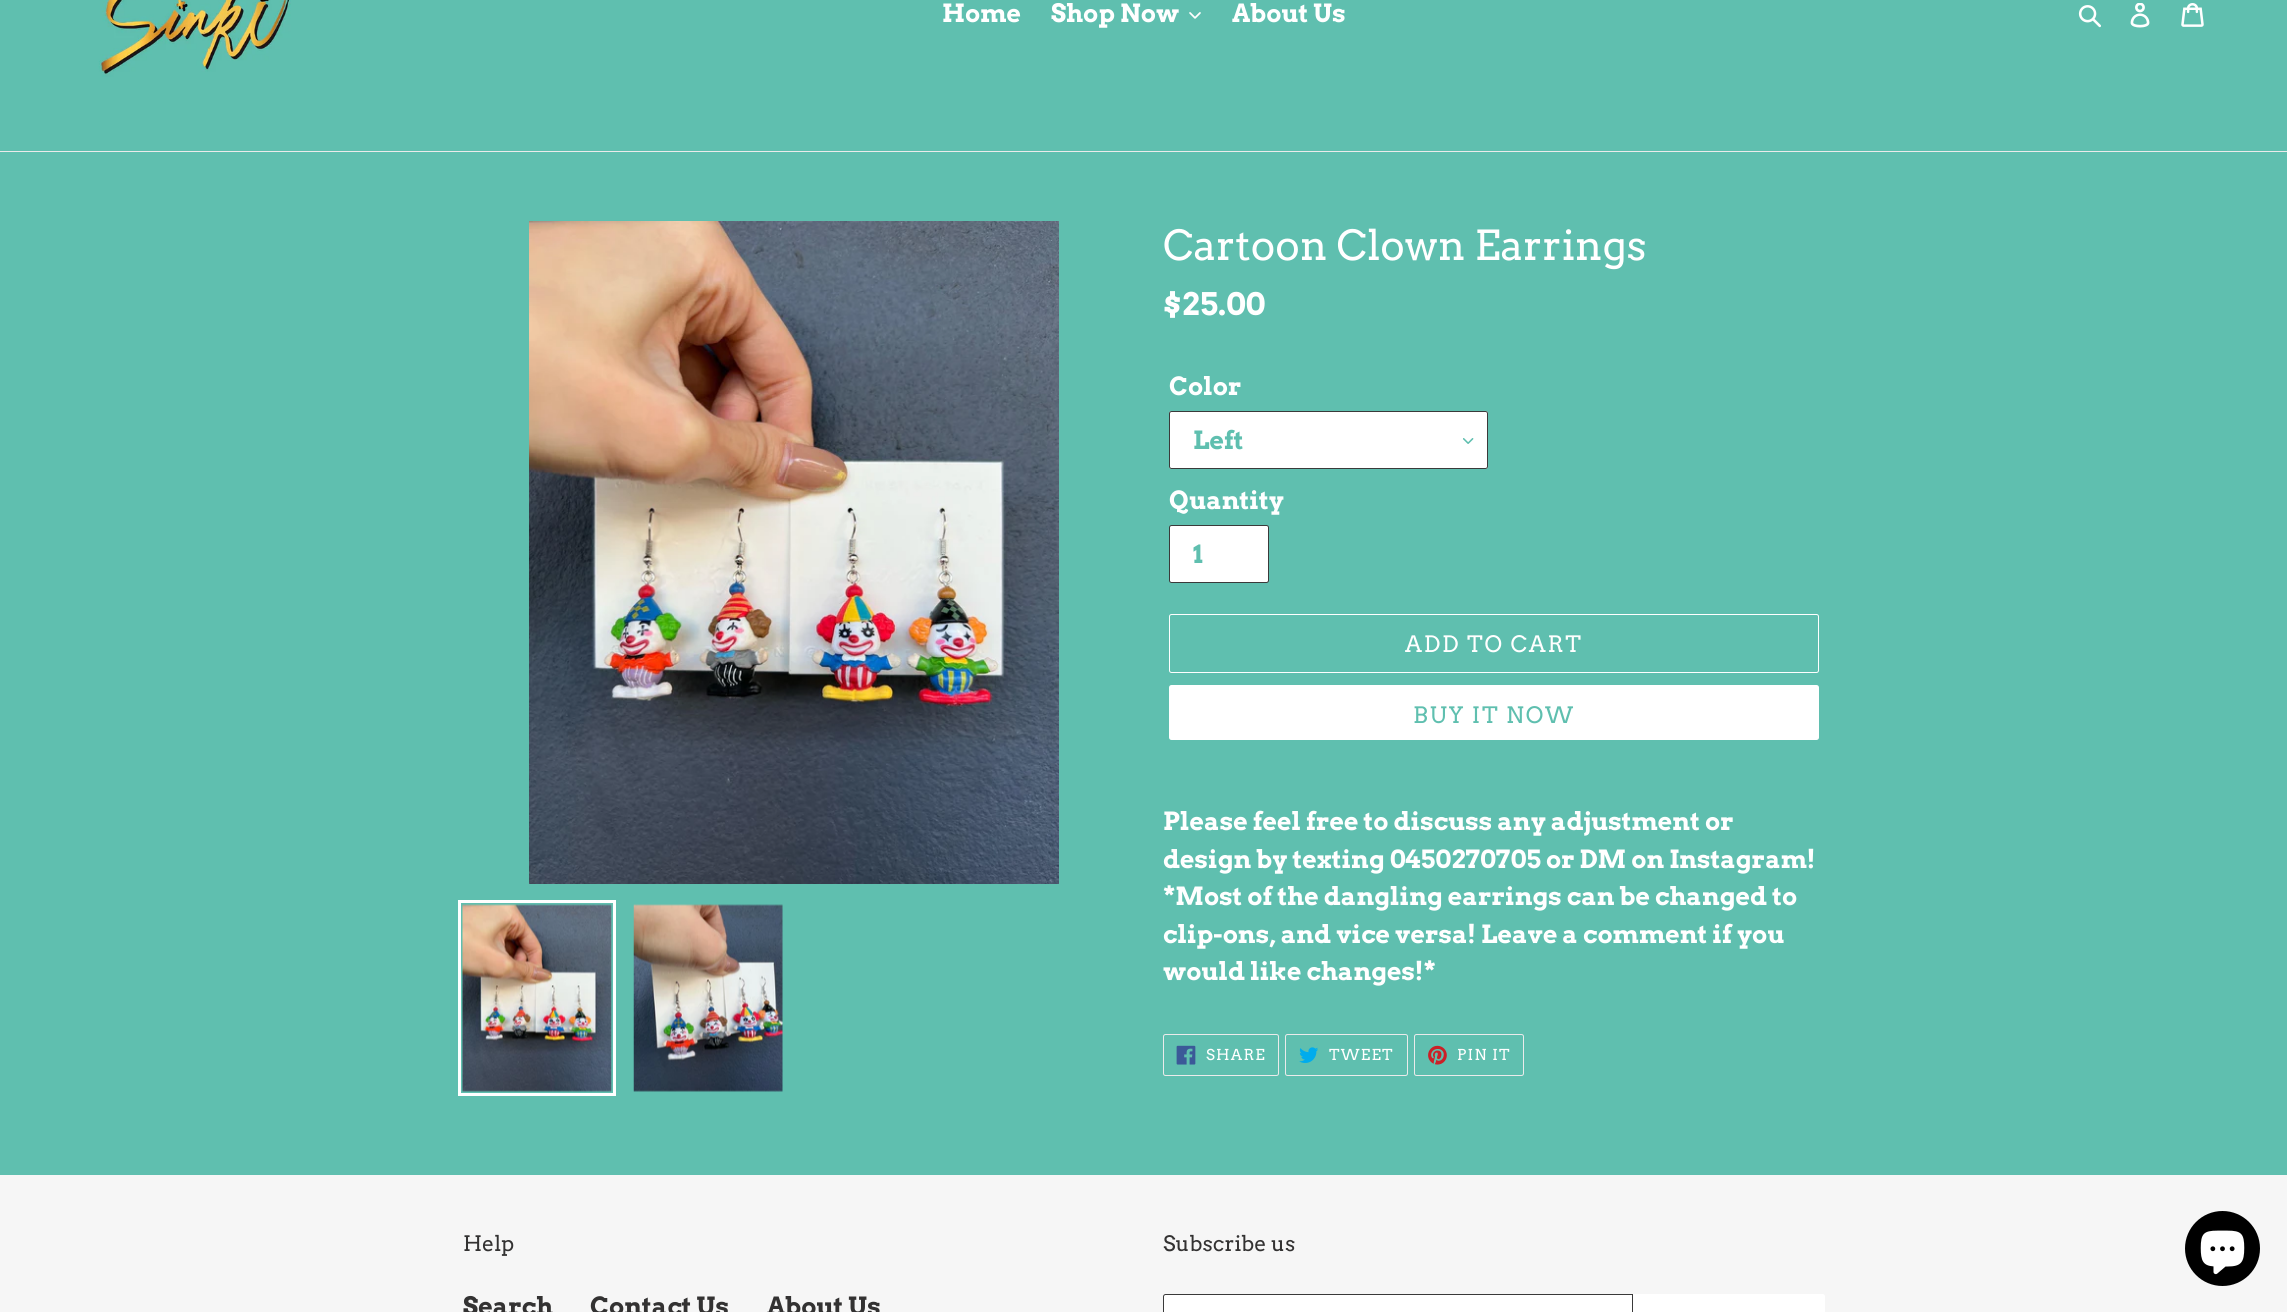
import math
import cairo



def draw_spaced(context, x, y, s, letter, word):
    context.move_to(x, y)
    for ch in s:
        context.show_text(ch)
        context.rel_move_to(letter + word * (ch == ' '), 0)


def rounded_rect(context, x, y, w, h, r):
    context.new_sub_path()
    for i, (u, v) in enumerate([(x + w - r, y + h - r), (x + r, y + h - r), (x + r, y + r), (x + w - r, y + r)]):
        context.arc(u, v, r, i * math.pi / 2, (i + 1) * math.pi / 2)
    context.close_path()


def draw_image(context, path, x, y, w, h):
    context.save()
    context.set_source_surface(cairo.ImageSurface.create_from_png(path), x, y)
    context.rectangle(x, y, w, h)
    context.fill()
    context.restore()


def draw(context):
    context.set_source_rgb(95 / 255, 191 / 255, 175 / 255)
    context.paint()
    context.set_source_rgb(235 / 255, 235 / 255, 235 / 255)
    context.rectangle(0, 151, 2287, 1)
    context.fill()
    draw_image(context, "images/1.png", 98, 0, 193, 77)
    draw_image(context, "images/2.png", 1189, 12, 12, 7)
    draw_image(context, "images/3.png", 2078, 5, 23, 23)
    draw_image(context, "images/4.png", 2130, 3, 20, 25)
    draw_image(context, "images/5.png", 2181, 3, 23, 24)
    draw_image(context, "images/6.png", 529, 221, 530, 663)
    context.rectangle(459.5, 901.5, 155, 193)
    context.set_source_rgb(1, 1, 1)
    context.set_line_width(3)
    context.stroke()
    draw_image(context, "images/7.png", 462, 904, 150, 188)
    draw_image(context, "images/8.png", 633, 904, 150, 188)
    rounded_rect(context, 1169, 411, 319, 58, 2.5)
    context.fill()
    draw_image(context, "images/9.png", 1463, 438, 11, 6)
    rounded_rect(context, 1169.5, 411.5, 318, 57, 2)
    context.set_source_rgb(58 / 255, 58 / 255, 58 / 255)
    context.set_line_width(1)
    context.stroke()
    context.set_source_rgb(1, 1, 1)
    rounded_rect(context, 1169.5, 525.5, 99, 57, 2)
    context.fill_preserve()
    context.set_source_rgb(58 / 255, 58 / 255, 58 / 255)
    context.stroke()
    rounded_rect(context, 1169.5, 614.5, 649, 58, 2)
    context.set_source_rgb(1, 1, 1)
    context.stroke()
    rounded_rect(context, 1169, 685, 650, 55, 2.5)
    context.fill()
    rounded_rect(context, 1163.5, 1034.5, 115, 41, 2)
    context.set_source_rgb(235 / 255, 235 / 255, 235 / 255)
    context.stroke()
    draw_image(context, "images/10.png", 1176, 1045, 20, 20)
    rounded_rect(context, 1285.5, 1034.5, 122, 41, 2)
    context.stroke()
    draw_image(context, "images/11.png", 1299, 1047, 19, 16)
    rounded_rect(context, 1414.5, 1034.5, 109, 41, 2)
    context.stroke()
    draw_image(context, "images/12.png", 1428, 1045, 19, 20)
    context.set_source_rgb(246 / 255, 246 / 255, 246 / 255)
    context.rectangle(0, 1175, 2287, 137)
    context.fill()
    context.set_source_rgb(1, 1, 1)
    context.new_path()
    context.move_to(1165.5, 1294.5)
    context.line_to(1632.5, 1294.5)
    context.line_to(1632.5, 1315.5)
    context.line_to(1165.5, 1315.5)
    context.curve_to(1164.5, 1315.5, 1163.5, 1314.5, 1163.5, 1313.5)
    context.line_to(1163.5, 1296.5)
    context.curve_to(1163.5, 1295.5, 1164.5, 1294.5, 1165.5, 1294.5)
    context.close_path()
    context.fill_preserve()
    context.set_source_rgb(58 / 255, 58 / 255, 58 / 255)
    context.stroke()
    context.set_source_rgb(1, 1, 1)
    context.new_path()
    context.move_to(1633, 1294)
    context.line_to(1822.5, 1294)
    context.curve_to(1824, 1294, 1825, 1295, 1825, 1296.5)
    context.line_to(1825, 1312.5)
    context.curve_to(1825, 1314, 1824, 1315, 1822.5, 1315)
    context.line_to(1633, 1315)
    context.close_path()
    context.fill()
    context.set_source_rgb(0, 0, 0)
    context.arc(2222.5, 1248.5, 37.5, 0, 2 * math.pi)
    context.fill()
    draw_image(context, "images/13.png", 2200, 1230, 45, 45)
    context.select_font_face("Arvo", cairo.FontSlant.NORMAL, cairo.FontWeight.BOLD)
    context.set_font_size(25)
    context.set_source_rgb(1, 1, 1)
    context.move_to(942, 22)
    context.show_text("Home")
    context.move_to(1051, 22)
    context.show_text("Shop Now")
    context.move_to(1232, 22)
    context.show_text("About Us")
    context.select_font_face("Arvo")
    context.set_font_size(41.25)
    context.move_to(1163, 260)
    context.show_text("Cartoon Clown Earrings")
    context.select_font_face("Arvo", cairo.FontSlant.NORMAL, cairo.FontWeight.BOLD)
    context.set_font_size(31)
    context.move_to(1163, 315)
    context.show_text("$25.00")
    context.set_font_size(25)
    context.move_to(1169, 395)
    context.show_text("Color")
    context.set_source_rgb(95 / 255, 191 / 255, 175 / 255)
    context.move_to(1193, 449)
    context.show_text("Left")
    context.set_source_rgb(1, 1, 1)
    context.move_to(1169, 509)
    context.show_text("Quantity")
    context.set_source_rgb(95 / 255, 191 / 255, 175 / 255)
    context.move_to(1193, 563)
    context.show_text("1")
    context.select_font_face("Arvo")
    context.set_font_size(22.5)
    context.set_source_rgb(1, 1, 1)
    draw_spaced(context, 1405, 652, "ADD TO CART", 1.75, 0)
    context.set_source_rgb(95 / 255, 191 / 255, 175 / 255)
    draw_spaced(context, 1413, 723, "BUY IT NOW", 1.75, 0)
    context.select_font_face("Arvo", cairo.FontSlant.NORMAL, cairo.FontWeight.BOLD)
    context.set_font_size(25)
    context.set_source_rgb(1, 1, 1)
    context.move_to(1163, 830)
    context.show_text("Please feel free to discuss any adjustment or")
    context.move_to(1163, 868)
    context.show_text("design by texting 0450270705 or DM on Instagram!")
    context.move_to(1163, 905)
    context.show_text("*Most of the dangling earrings can be changed to")
    context.move_to(1163, 943)
    context.show_text("clip-ons, and vice versa! Leave a comment if you")
    context.move_to(1163, 980)
    context.show_text("would like changes!*")
    context.select_font_face("Arvo")
    context.set_font_size(15)
    draw_spaced(context, 1206, 1060, "SHARE", 1.25, 0)
    draw_spaced(context, 1329, 1060, "TWEET", 1.25, 0)
    draw_spaced(context, 1457, 1060, "PIN IT", 1.25, 0)
    context.set_font_size(21.25)
    context.set_source_rgb(51 / 255, 50 / 255, 50 / 255)
    context.move_to(463, 1251)
    context.show_text("Help")
    context.select_font_face("Arvo", cairo.FontSlant.NORMAL, cairo.FontWeight.BOLD)
    context.set_font_size(25)
    context.move_to(463, 1315)
    context.show_text("Search")
    context.move_to(590, 1315)
    context.show_text("Contact Us")
    context.move_to(767, 1315)
    context.show_text("About Us")
    context.select_font_face("Arvo")
    context.set_font_size(21.25)
    context.move_to(1163, 1251)
    context.show_text("Subscribe us")


surface = cairo.ImageSurface(cairo.Format.RGB24, 2287, 1312)
context = cairo.Context(surface)
options = cairo.FontOptions()
options.set_hint_metrics(cairo.HintMetrics.OFF)
options.set_hint_style(cairo.HintStyle.NONE)
context.set_font_options(options)
context.set_miter_limit(4)
draw(context)
surface.write_to_png("out.png")
